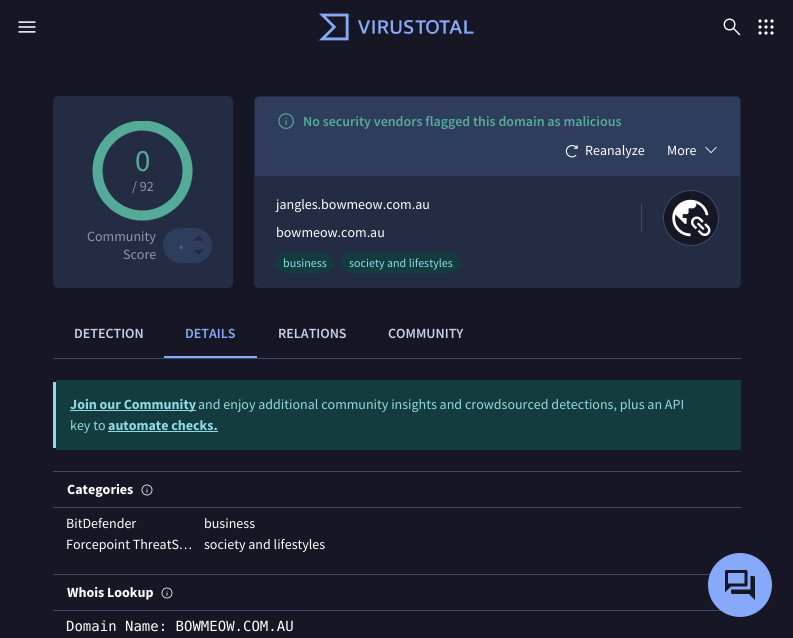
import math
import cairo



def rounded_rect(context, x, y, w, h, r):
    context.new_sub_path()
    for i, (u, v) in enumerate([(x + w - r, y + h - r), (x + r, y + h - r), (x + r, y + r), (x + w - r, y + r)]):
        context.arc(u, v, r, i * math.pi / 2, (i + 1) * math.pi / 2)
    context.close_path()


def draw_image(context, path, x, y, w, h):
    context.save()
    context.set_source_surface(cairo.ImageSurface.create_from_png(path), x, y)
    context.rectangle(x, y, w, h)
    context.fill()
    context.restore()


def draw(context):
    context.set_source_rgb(22 / 255, 22 / 255, 37 / 255)
    context.paint()
    draw_image(context, "images/1.png", 18, 21, 18, 12)
    draw_image(context, "images/2.png", 319, 13, 155, 28)
    draw_image(context, "images/3.png", 723, 18, 18, 18)
    draw_image(context, "images/4.png", 758, 19, 16, 16)
    context.set_source_rgb(35 / 255, 44 / 255, 66 / 255)
    rounded_rect(context, 53, 96, 180, 192, 5)
    context.fill()
    context.set_source_rgb(47 / 255, 61 / 255, 92 / 255)
    context.arc(143, 171, 50, 0, 2 * math.pi)
    context.fill()
    context.set_source_rgb(35 / 255, 44 / 255, 66 / 255)
    context.arc(143, 171, 40, 0, 2 * math.pi)
    context.fill()
    context.set_source_rgb(47 / 255, 61 / 255, 92 / 255)
    rounded_rect(context, 163, 228, 49, 35, 17.5)
    context.fill()
    context.set_source_rgb(35 / 255, 42 / 255, 65 / 255)
    context.new_path()
    context.move_to(193.5, 240.5)
    context.line_to(198.5, 235.5)
    context.line_to(203.5, 240.5)
    context.close_path()
    context.move_to(198.5, 255)
    context.line_to(193.5, 250)
    context.line_to(203.5, 250)
    context.close_path()
    context.fill()
    context.set_source_rgb(35 / 255, 44 / 255, 66 / 255)
    rounded_rect(context, 254, 96, 487, 192, 5)
    context.fill()
    context.set_source_rgb(47 / 255, 61 / 255, 92 / 255)
    context.new_path()
    context.move_to(259, 97)
    context.line_to(736, 97)
    context.curve_to(738, 97, 740, 99, 740, 101)
    context.line_to(740, 176)
    context.line_to(255, 176)
    context.line_to(255, 101)
    context.curve_to(255, 99, 257, 97, 259, 97)
    context.close_path()
    context.fill()
    draw_image(context, "images/5.png", 278, 113, 16, 16)
    draw_image(context, "images/6.png", 565, 145, 13, 13)
    draw_image(context, "images/7.png", 705, 147, 12, 6)
    context.set_source_rgb(61 / 255, 74 / 255, 105 / 255)
    context.rectangle(641, 204, 1, 28)
    context.fill()
    context.set_source_rgb(22 / 255, 22 / 255, 37 / 255)
    context.arc(691, 218, 27.5, 0, 2 * math.pi)
    context.fill_preserve()
    context.set_source_rgb(61 / 255, 74 / 255, 105 / 255)
    context.set_line_width(1)
    context.stroke()
    draw_image(context, "images/8.png", 672, 199, 39, 38)
    context.set_source_rgb(20 / 255, 59 / 255, 62 / 255)
    rounded_rect(context, 276, 253, 58, 20, 10)
    context.fill()
    rounded_rect(context, 341, 253, 119, 20, 10)
    context.fill()
    context.set_source_rgb(61 / 255, 74 / 255, 105 / 255)
    context.rectangle(53, 358, 688, 1)
    context.fill()
    context.set_source_rgb(134 / 255, 170 / 255, 249 / 255)
    context.rectangle(164, 356, 93, 2)
    context.fill()
    context.set_source_rgb(20 / 255, 59 / 255, 62 / 255)
    context.new_path()
    context.move_to(56, 380)
    context.line_to(741, 380)
    context.line_to(741, 450)
    context.line_to(56, 450)
    context.line_to(56, 446)
    context.line_to(56, 384)
    context.close_path()
    context.fill()
    context.set_source_rgb(142 / 255, 219 / 255, 227 / 255)
    context.rectangle(53, 382, 3, 66)
    context.fill()
    context.rectangle(70, 410, 126, 1)
    context.fill()
    context.rectangle(108, 431, 110, 1)
    context.fill()
    context.set_source_rgb(61 / 255, 74 / 255, 105 / 255)
    context.rectangle(53, 471, 688, 1)
    context.fill()
    context.rectangle(53, 507, 688, 1)
    context.fill()
    draw_image(context, "images/9.png", 141, 484, 12, 12)
    context.rectangle(53, 574, 657, 1)
    context.fill()
    context.rectangle(53, 610, 669, 1)
    context.fill()
    draw_image(context, "images/9.png", 161, 587, 12, 12)
    context.set_source_rgb(134 / 255, 170 / 255, 249 / 255)
    context.arc(740, 585, 32, 0, 2 * math.pi)
    context.fill()
    draw_image(context, "images/10.png", 725, 570, 30, 30)
    context.select_font_face("Source Sans Pro")
    context.set_font_size(31)
    context.set_source_rgb(84 / 255, 171 / 255, 152 / 255)
    context.move_to(135, 171)
    context.show_text("0")
    context.set_font_size(14)
    context.set_source_rgb(137 / 255, 151 / 255, 180 / 255)
    context.move_to(132, 191)
    context.show_text("/ 92")
    context.save()
    context.new_path()
    context.move_to(92.5, 221)
    context.line_to(92.5, 121)
    context.line_to(192.5, 121)
    context.line_to(192.5, 221)
    context.close_path()
    context.clip()
    context.new_path()
    context.move_to(97.5, 170.5)
    context.curve_to(97.5, 146, 117.5, 125.5, 142.5, 125.5)
    context.curve_to(167, 125.5, 187.5, 146, 187.5, 170.5)
    context.curve_to(187.5, 195.5, 167, 215.5, 142.5, 215.5)
    context.curve_to(117.5, 215.5, 97.5, 195.5, 97.5, 170.5)
    context.set_source_rgb(84 / 255, 171 / 255, 152 / 255)
    context.set_line_width(10)
    context.set_line_cap(cairo.LineCap.ROUND)
    context.stroke()
    context.restore()
    context.move_to(87, 241)
    context.show_text("Community")
    context.move_to(123, 259)
    context.show_text("Score")
    context.set_source_rgb(87 / 255, 97 / 255, 117 / 255)
    context.move_to(179, 251)
    context.show_text("•")
    context.select_font_face("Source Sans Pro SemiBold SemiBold")
    context.set_source_rgb(84 / 255, 171 / 255, 152 / 255)
    context.move_to(303, 126)
    context.show_text("No security vendors flagged this domain as malicious")
    context.select_font_face("Source Sans Pro")
    context.set_source_rgb(1, 1, 1)
    context.move_to(585, 155)
    context.show_text("Reanalyze")
    context.move_to(667, 155)
    context.show_text("More")
    context.move_to(276, 209)
    context.show_text("jangles.bowmeow.com.au")
    context.move_to(276, 237)
    context.show_text("bowmeow.com.au")
    context.set_font_size(12)
    context.set_source_rgb(142 / 255, 219 / 255, 227 / 255)
    context.move_to(283, 267)
    context.show_text("business")
    context.move_to(349, 267)
    context.show_text("society and lifestyles")
    context.select_font_face("Source Sans Pro SemiBold SemiBold")
    context.set_font_size(14)
    context.set_source_rgb(195 / 255, 210 / 255, 232 / 255)
    context.move_to(74, 338)
    context.show_text("DETECTION")
    context.set_source_rgb(134 / 255, 170 / 255, 249 / 255)
    context.move_to(185, 338)
    context.show_text("DETAILS")
    context.set_source_rgb(195 / 255, 210 / 255, 232 / 255)
    context.move_to(278, 338)
    context.show_text("RELATIONS")
    context.move_to(388, 338)
    context.show_text("COMMUNITY")
    context.select_font_face("Source Sans Pro", cairo.FontSlant.NORMAL, cairo.FontWeight.BOLD)
    context.set_source_rgb(142 / 255, 219 / 255, 227 / 255)
    context.move_to(70, 409)
    context.show_text("Join our Community")
    context.select_font_face("Source Sans Pro")
    context.move_to(198, 409)
    context.show_text("and enjoy additional community insights and crowdsourced detections, plus an API")
    context.move_to(70, 430)
    context.show_text("key to")
    context.select_font_face("Source Sans Pro", cairo.FontSlant.NORMAL, cairo.FontWeight.BOLD)
    context.move_to(108, 430)
    context.show_text("automate checks.")
    context.set_source_rgb(1, 1, 1)
    context.move_to(67, 494)
    context.show_text("Categories")
    context.select_font_face("Source Sans Pro")
    context.move_to(66, 528)
    context.show_text("BitDefender")
    context.move_to(204, 528)
    context.show_text("business")
    context.move_to(66, 549)
    context.show_text("Forcepoint ThreatS…")
    context.move_to(204, 549)
    context.show_text("society and lifestyles")
    context.select_font_face("Source Sans Pro", cairo.FontSlant.NORMAL, cairo.FontWeight.BOLD)
    context.move_to(67, 597)
    context.show_text("Whois Lookup")
    context.select_font_face("DejaVu Sans Mono")
    context.move_to(66, 631)
    context.show_text("Domain Name: BOWMEOW.COM.AU")


surface = cairo.ImageSurface(cairo.Format.RGB24, 793, 638)
context = cairo.Context(surface)
options = cairo.FontOptions()
options.set_hint_metrics(cairo.HintMetrics.OFF)
options.set_hint_style(cairo.HintStyle.NONE)
context.set_font_options(options)
context.set_miter_limit(4)
draw(context)
surface.write_to_png("out.png")
